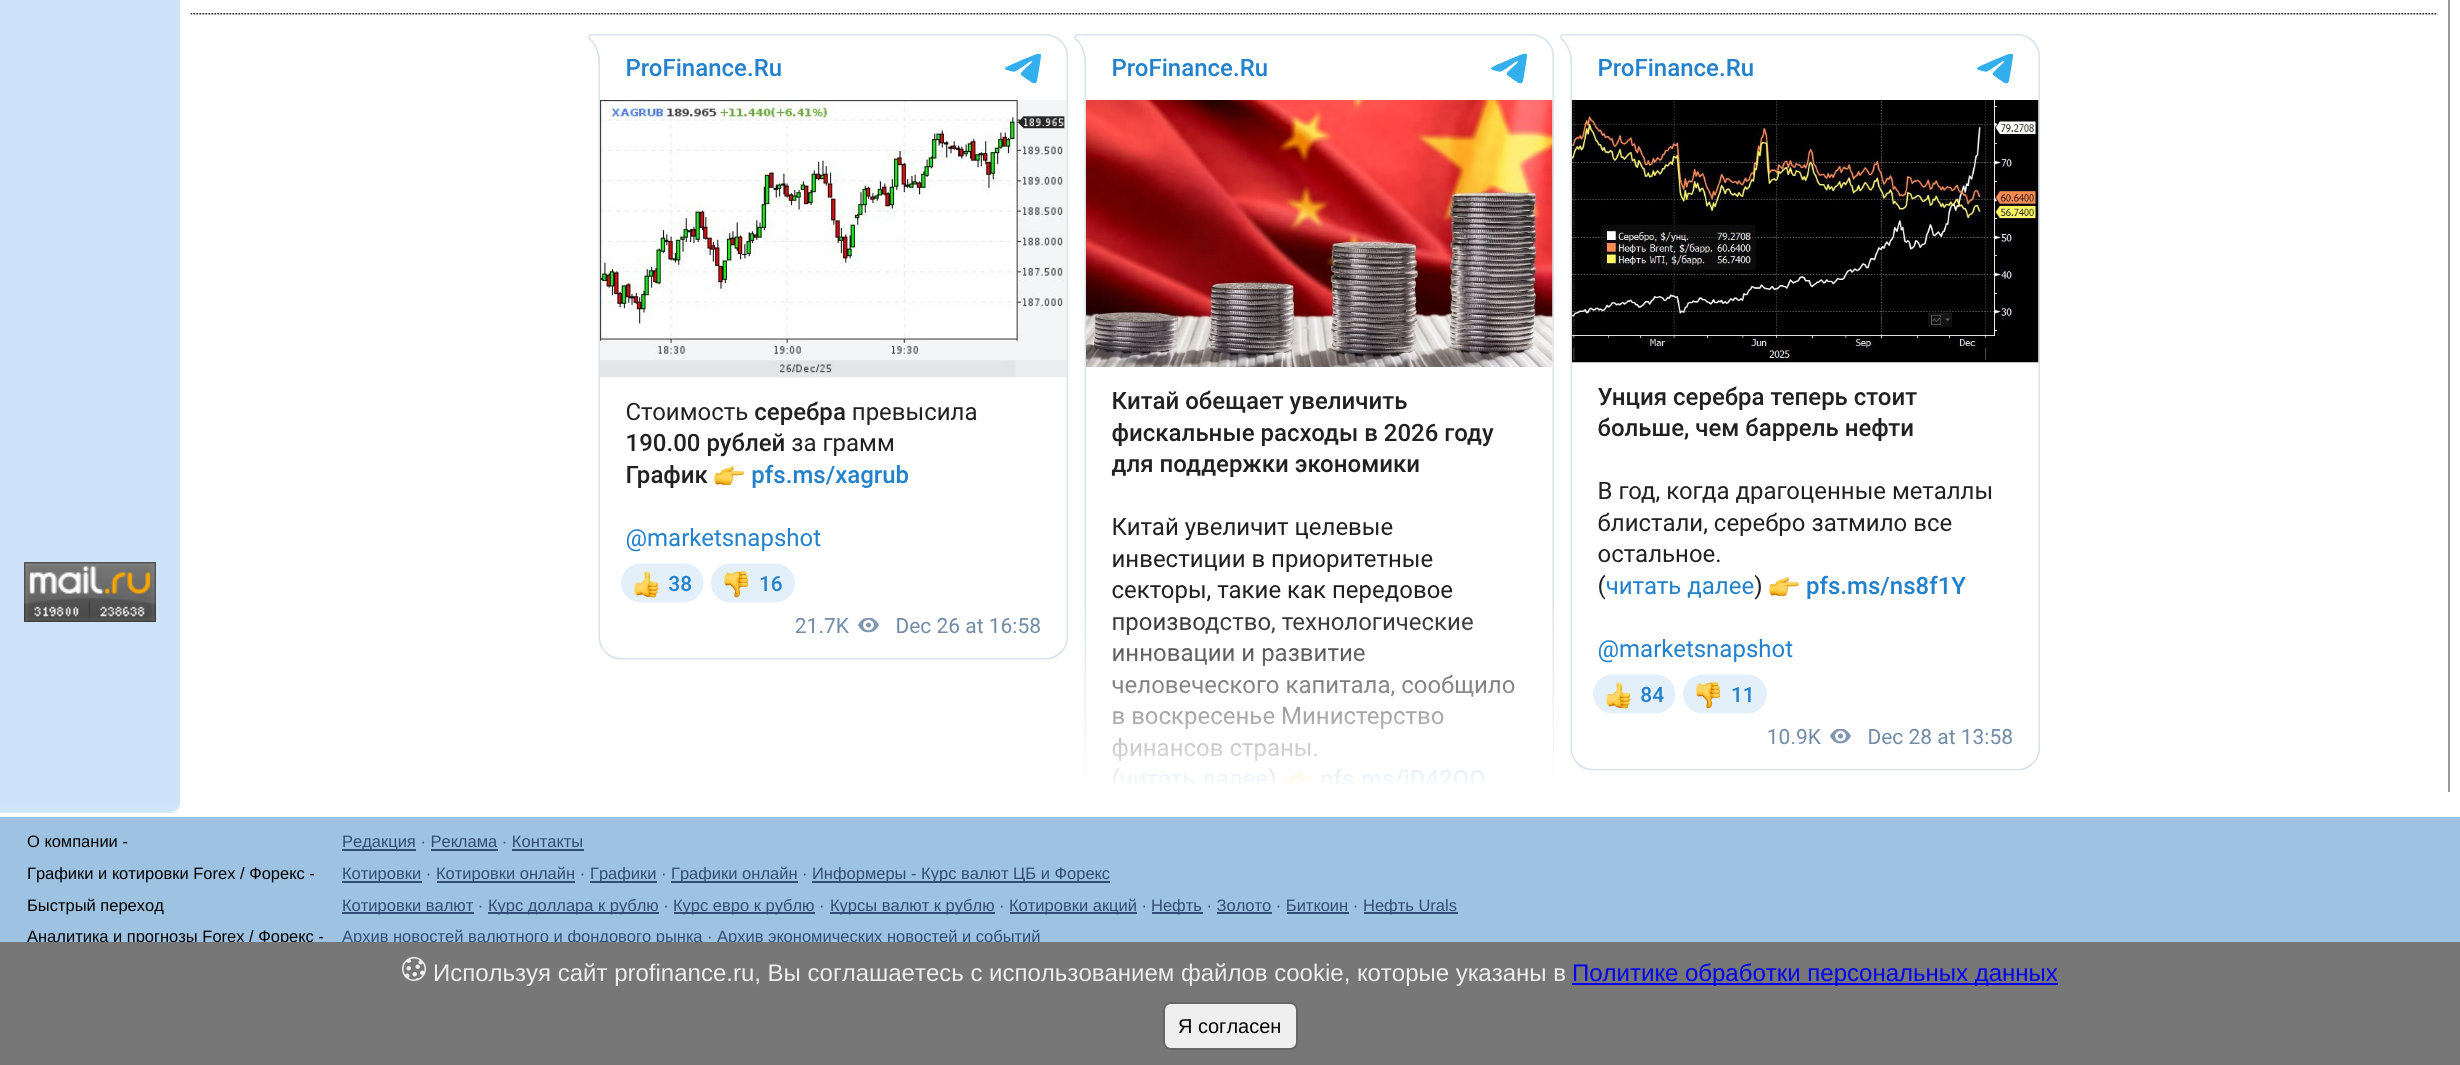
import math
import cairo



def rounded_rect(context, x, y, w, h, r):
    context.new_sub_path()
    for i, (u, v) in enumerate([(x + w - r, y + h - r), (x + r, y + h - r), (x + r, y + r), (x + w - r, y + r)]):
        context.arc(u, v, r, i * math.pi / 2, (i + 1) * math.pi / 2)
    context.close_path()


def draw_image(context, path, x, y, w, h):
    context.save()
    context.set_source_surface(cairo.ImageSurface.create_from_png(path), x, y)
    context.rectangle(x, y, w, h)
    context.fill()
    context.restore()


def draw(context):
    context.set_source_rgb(1, 1, 1)
    context.paint()
    context.set_source_rgb(231 / 255, 241 / 255, 252 / 255)
    context.rectangle(0, 812, 180, 1)
    context.fill()
    context.set_source_rgb(158 / 255, 194 / 255, 225 / 255)
    context.rectangle(0, 817, 2460, 125)
    context.fill()
    context.set_source_rgb(49 / 255, 77 / 255, 115 / 255)
    context.rectangle(342, 849, 74, 2)
    context.fill()
    context.rectangle(431, 849, 67, 2)
    context.fill()
    context.rectangle(512, 849, 72, 2)
    context.fill()
    context.rectangle(342, 881, 80, 2)
    context.fill()
    context.rectangle(437, 881, 138, 2)
    context.fill()
    context.rectangle(590, 881, 67, 2)
    context.fill()
    context.rectangle(671, 881, 127, 2)
    context.fill()
    context.rectangle(812, 881, 298, 2)
    context.fill()
    context.rectangle(342, 912, 132, 2)
    context.fill()
    context.rectangle(488, 912, 171, 2)
    context.fill()
    context.rectangle(674, 912, 141, 2)
    context.fill()
    context.rectangle(830, 912, 165, 2)
    context.fill()
    context.rectangle(1010, 912, 127, 2)
    context.fill()
    context.rectangle(1152, 912, 51, 2)
    context.fill()
    context.rectangle(1364, 912, 94, 2)
    context.fill()
    context.rectangle(1217, 912, 55, 2)
    context.fill()
    context.rectangle(1287, 912, 62, 2)
    context.fill()
    context.set_source_rgb(206 / 255, 227 / 255, 249 / 255)
    context.rectangle(0, 0, 180, 804)
    context.fill()
    draw_image(context, "images/1.png", 24, 562, 132, 60)
    draw_image(context, "images/2.png", 190, 13, 2248, 2)
    draw_image(context, "images/3.png", 588, 34, 480, 626)
    draw_image(context, "images/4.png", 1074, 34, 480, 750)
    draw_image(context, "images/5.png", 1560, 34, 480, 737)
    context.set_source_rgb(153 / 255, 153 / 255, 153 / 255)
    context.rectangle(2448, 0, 2, 792)
    context.fill()
    draw_image(context, "images/6.png", 0, 804, 180, 9)
    context.select_font_face("Liberation Sans")
    context.set_font_size(16.5)
    context.set_source_rgb(0, 0, 0)
    context.move_to(27, 847)
    context.show_text("О компании -")
    context.set_source_rgb(49 / 255, 77 / 255, 115 / 255)
    context.move_to(342, 847)
    context.show_text("Редакция · Реклама · Контакты")
    context.set_source_rgb(0, 0, 0)
    context.move_to(27, 879)
    context.show_text("Графики и котировки Forex / Форекс -")
    context.set_source_rgb(49 / 255, 77 / 255, 115 / 255)
    context.move_to(342, 879)
    context.show_text("Котировки ·")
    context.move_to(436, 879)
    context.show_text("Котировки онлайн ·")
    context.move_to(590, 879)
    context.show_text("Графики ·")
    context.move_to(671, 879)
    context.show_text("Графики онлайн ·")
    context.move_to(812, 879)
    context.show_text("Информеры - Курс валют ЦБ и Форекс")
    context.set_source_rgb(0, 0, 0)
    context.move_to(27, 911)
    context.show_text("Быстрый переход")
    context.set_source_rgb(49 / 255, 77 / 255, 115 / 255)
    context.move_to(342, 911)
    context.show_text("Котировки валют ·")
    context.move_to(488, 911)
    context.show_text("Курс доллара к рублю ·")
    context.move_to(673, 911)
    context.show_text("Курс евро к рублю ·")
    context.move_to(830, 911)
    context.show_text("Курсы валют к рублю ·")
    context.move_to(1009, 911)
    context.show_text("Котировки акций ·")
    context.move_to(1151, 911)
    context.show_text("Нефть · Золото · Биткоин ·")
    context.move_to(1363, 911)
    context.show_text("Нефть Urals")
    context.set_source_rgb(0, 0, 0)
    context.move_to(27, 942)
    context.show_text("Аналитика и прогнозы Forex / Форекс -")
    context.set_source_rgb(49 / 255, 77 / 255, 115 / 255)
    context.move_to(342, 942)
    context.show_text("Архив новостей валютного и фондового рынка · Архив экономических новостей и событий")
    context.set_source_rgb(119 / 255, 119 / 255, 119 / 255)
    context.rectangle(0, 942, 2460, 123)
    context.fill()
    draw_image(context, "images/7.png", 402, 957, 24, 24)
    context.set_font_size(24)
    context.set_source_rgb(238 / 255, 238 / 255, 238 / 255)
    context.move_to(433, 981)
    context.show_text("Используя сайт profinance.ru, Вы соглашаетесь с использованием файлов cооkie, которые указаны в")
    context.set_source_rgb(0, 0, 238 / 255)
    context.rectangle(1572, 983, 486, 2)
    context.fill()
    context.move_to(1572, 981)
    context.show_text("Политике обработки персональных данных")
    context.set_source_rgb(239 / 255, 239 / 255, 239 / 255)
    rounded_rect(context, 1164, 1003, 133, 46, 7)
    context.fill_preserve()
    context.set_source_rgb(102 / 255, 102 / 255, 102 / 255)
    context.stroke()
    context.set_font_size(20)
    context.set_source_rgb(0, 0, 0)
    context.move_to(1178, 1033)
    context.show_text("Я согласен")


surface = cairo.ImageSurface(cairo.Format.RGB24, 2460, 1065)
context = cairo.Context(surface)
options = cairo.FontOptions()
options.set_hint_metrics(cairo.HintMetrics.OFF)
options.set_hint_style(cairo.HintStyle.NONE)
context.set_font_options(options)
context.set_miter_limit(4)
draw(context)
surface.write_to_png("out.png")
